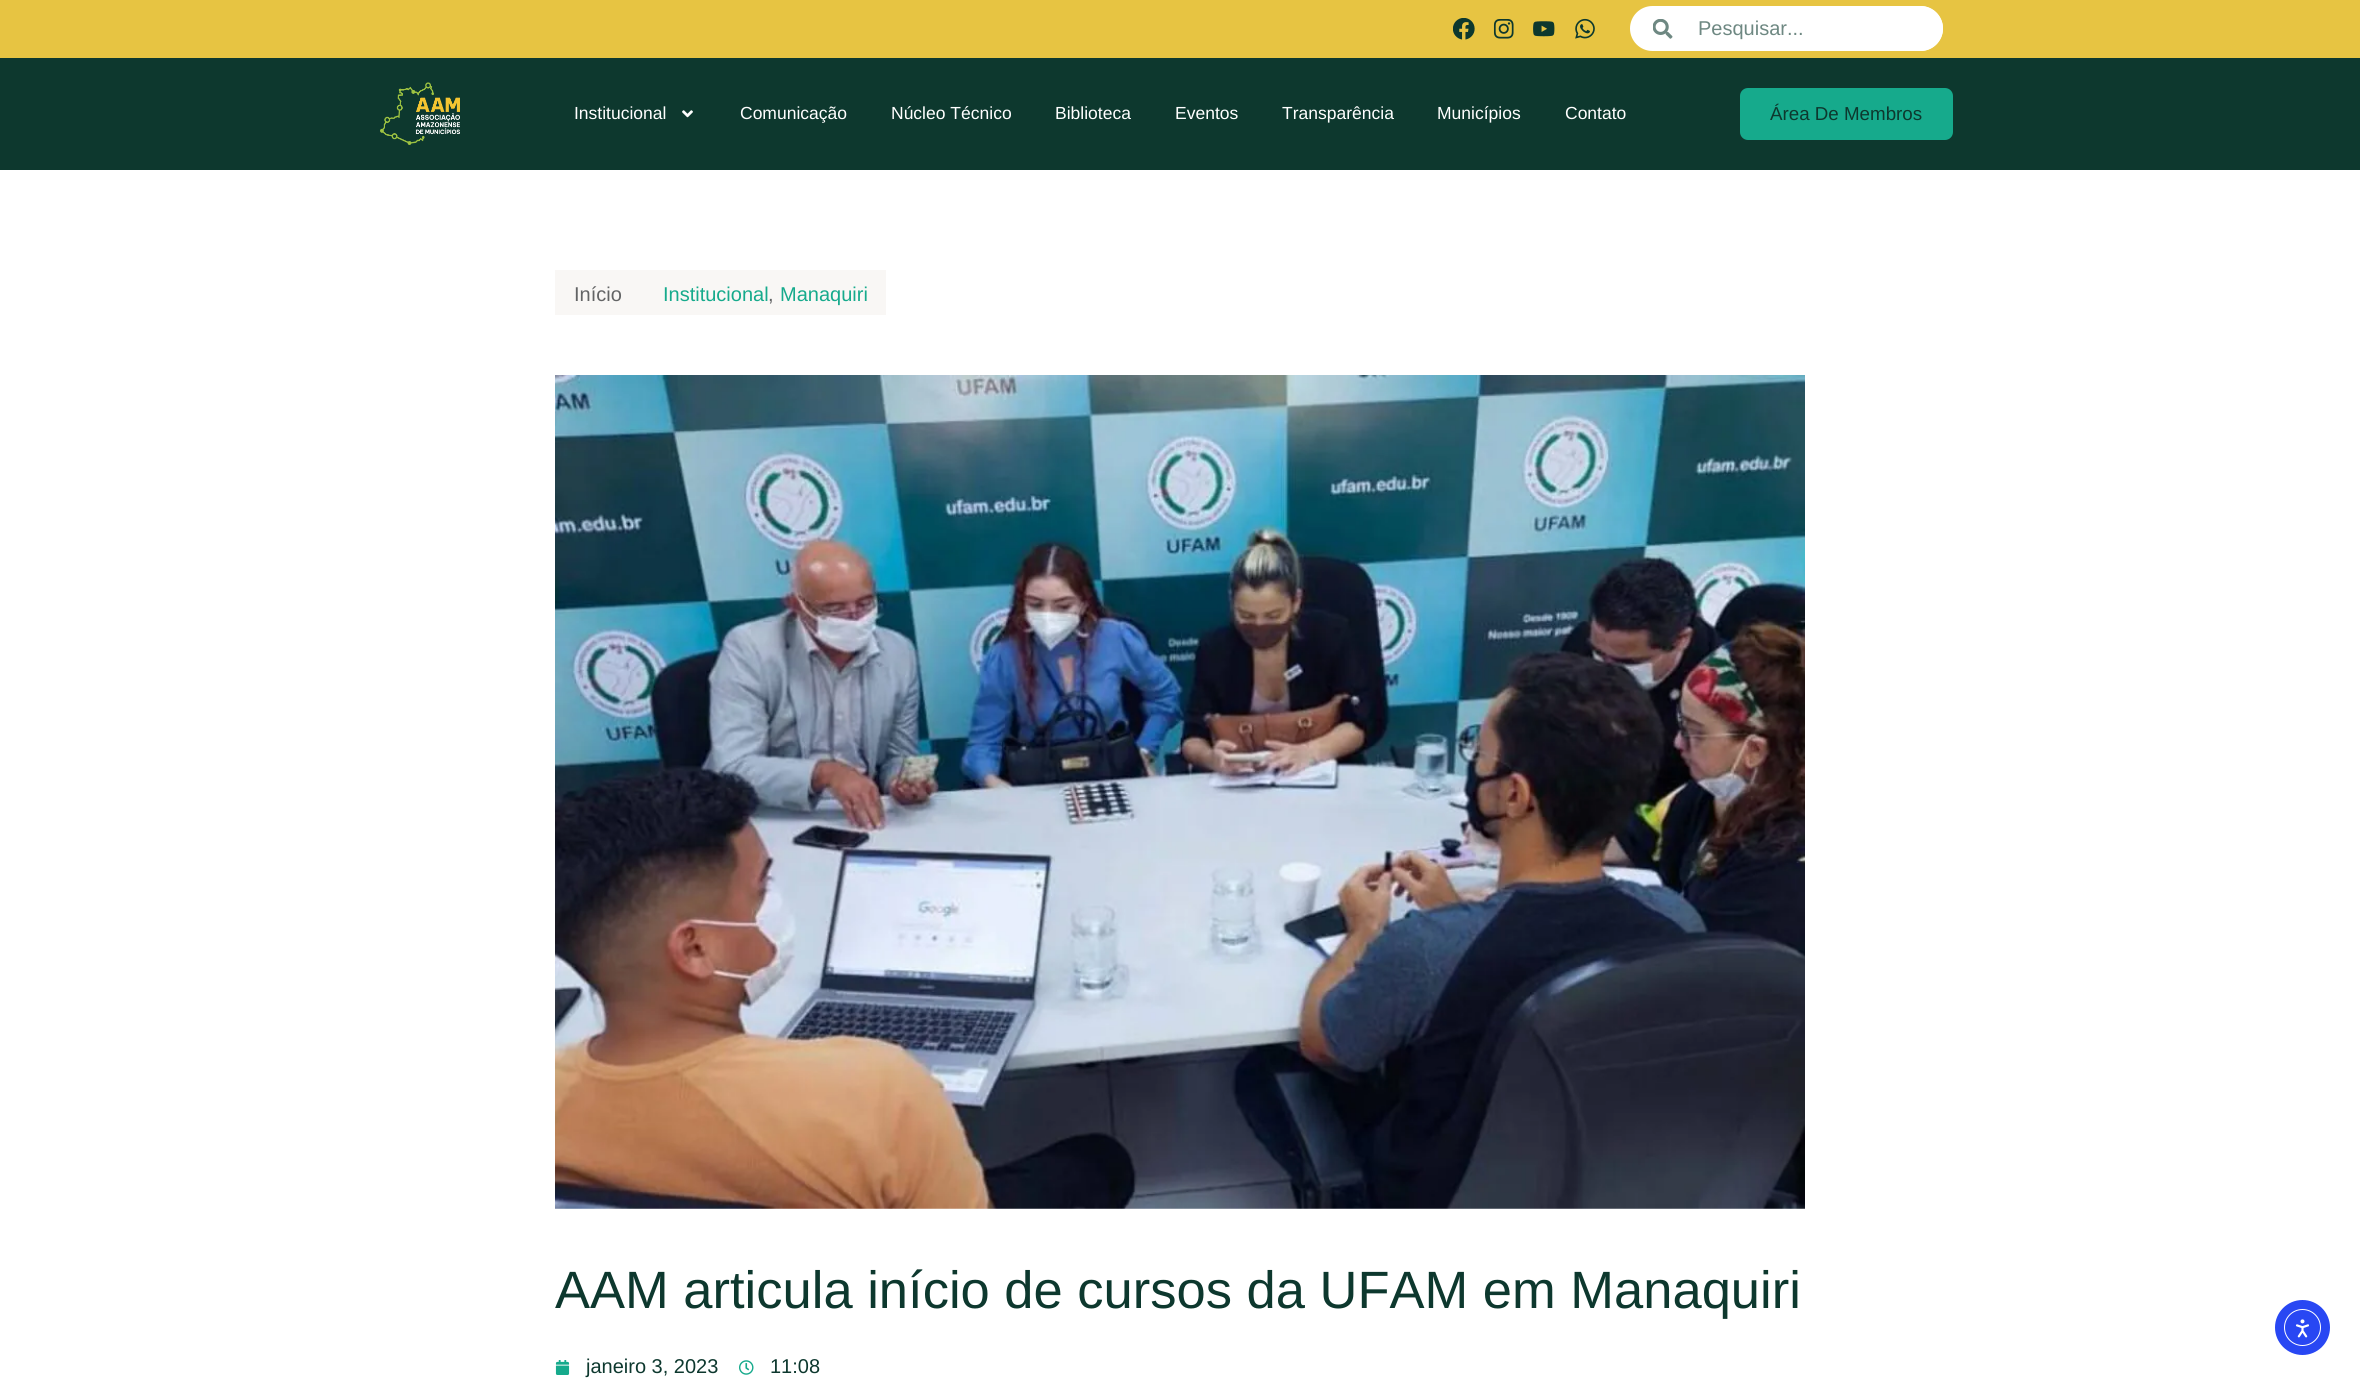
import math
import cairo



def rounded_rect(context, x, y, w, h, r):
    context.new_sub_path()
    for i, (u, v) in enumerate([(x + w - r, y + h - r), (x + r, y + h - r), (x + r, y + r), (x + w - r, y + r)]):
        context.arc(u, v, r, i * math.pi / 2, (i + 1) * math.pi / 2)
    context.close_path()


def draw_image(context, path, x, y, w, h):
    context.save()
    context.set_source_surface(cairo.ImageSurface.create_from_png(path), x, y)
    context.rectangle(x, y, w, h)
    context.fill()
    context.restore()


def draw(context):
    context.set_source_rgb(1, 1, 1)
    context.paint()
    context.set_source_rgb(231 / 255, 196 / 255, 66 / 255)
    context.rectangle(0, 0, 2360, 58)
    context.fill()
    draw_image(context, "images/1.png", 1453, 18, 22, 22)
    draw_image(context, "images/2.png", 1493, 19, 21, 20)
    draw_image(context, "images/3.png", 1533, 21, 22, 16)
    draw_image(context, "images/4.png", 1575, 18, 20, 21)
    context.set_source_rgb(1, 1, 1)
    rounded_rect(context, 1630, 6, 313, 45, 22.5)
    context.fill()
    draw_image(context, "images/5.png", 1653, 19, 20, 20)
    rounded_rect(context, 1673, 6, 270, 45, 22.5)
    context.fill()
    context.set_source_rgb(13 / 255, 56 / 255, 46 / 255)
    context.rectangle(0, 58, 2360, 112)
    context.fill()
    draw_image(context, "images/6.png", 380, 82, 80, 63)
    draw_image(context, "images/7.png", 682, 110, 11, 8)
    context.set_source_rgb(22 / 255, 170 / 255, 140 / 255)
    rounded_rect(context, 1740, 88, 213, 52, 8)
    context.fill()
    context.set_source_rgb(249 / 255, 247 / 255, 245 / 255)
    context.rectangle(555, 270, 331, 45)
    context.fill()
    draw_image(context, "images/8.png", 555, 375, 1250, 834)
    draw_image(context, "images/9.png", 555, 1360, 15, 15)
    draw_image(context, "images/10.png", 739, 1360, 15, 15)
    context.set_source_rgb(40 / 255, 71 / 255, 243 / 255)
    context.arc(2302.5, 1327.5, 27.5, 0, 2 * math.pi)
    context.fill()
    context.arc(2302.5, 1327.5, 18, 0, 2 * math.pi)
    context.set_source_rgb(1, 1, 1)
    context.set_line_width(1)
    context.stroke()
    draw_image(context, "images/11.png", 2295, 1319, 14, 19)
    context.select_font_face("Liberation Sans")
    context.set_font_size(20)
    context.set_source_rgb(110 / 255, 136 / 255, 130 / 255)
    context.move_to(1698, 35)
    context.show_text("Pesquisar...")
    context.set_font_size(17.5)
    context.set_source_rgb(1, 1, 1)
    context.move_to(574, 119)
    context.show_text("Institucional")
    context.move_to(740, 119)
    context.show_text("Comunicação")
    context.move_to(891, 119)
    context.show_text("Núcleo Técnico")
    context.move_to(1055, 119)
    context.show_text("Biblioteca")
    context.move_to(1175, 119)
    context.show_text("Eventos")
    context.move_to(1282, 119)
    context.show_text("Transparência")
    context.move_to(1437, 119)
    context.show_text("Municípios")
    context.move_to(1565, 119)
    context.show_text("Contato")
    context.set_font_size(18.75)
    context.set_source_rgb(13 / 255, 56 / 255, 46 / 255)
    context.move_to(1770, 120)
    context.show_text("Área De Membros")
    context.set_font_size(20)
    context.set_source_rgb(99 / 255, 100 / 255, 101 / 255)
    context.move_to(574, 301)
    context.show_text("Início")
    context.set_source_rgb(22 / 255, 170 / 255, 140 / 255)
    context.move_to(663, 301)
    context.show_text("Institucional")
    context.set_source_rgb(99 / 255, 100 / 255, 101 / 255)
    context.move_to(768, 301)
    context.show_text(",")
    context.set_source_rgb(22 / 255, 170 / 255, 140 / 255)
    context.move_to(780, 301)
    context.show_text("Manaquiri")
    context.set_font_size(52.5)
    context.set_source_rgb(13 / 255, 56 / 255, 46 / 255)
    context.move_to(555, 1308)
    context.show_text("AAM articula início de cursos da UFAM em Manaquiri")
    context.set_font_size(20)
    context.move_to(586, 1373)
    context.show_text("janeiro 3, 2023")
    context.move_to(770, 1373)
    context.show_text("11:08")


surface = cairo.ImageSurface(cairo.Format.RGB24, 2360, 1385)
context = cairo.Context(surface)
options = cairo.FontOptions()
options.set_hint_metrics(cairo.HintMetrics.OFF)
options.set_hint_style(cairo.HintStyle.NONE)
context.set_font_options(options)
context.set_miter_limit(4)
draw(context)
surface.write_to_png("out.png")
